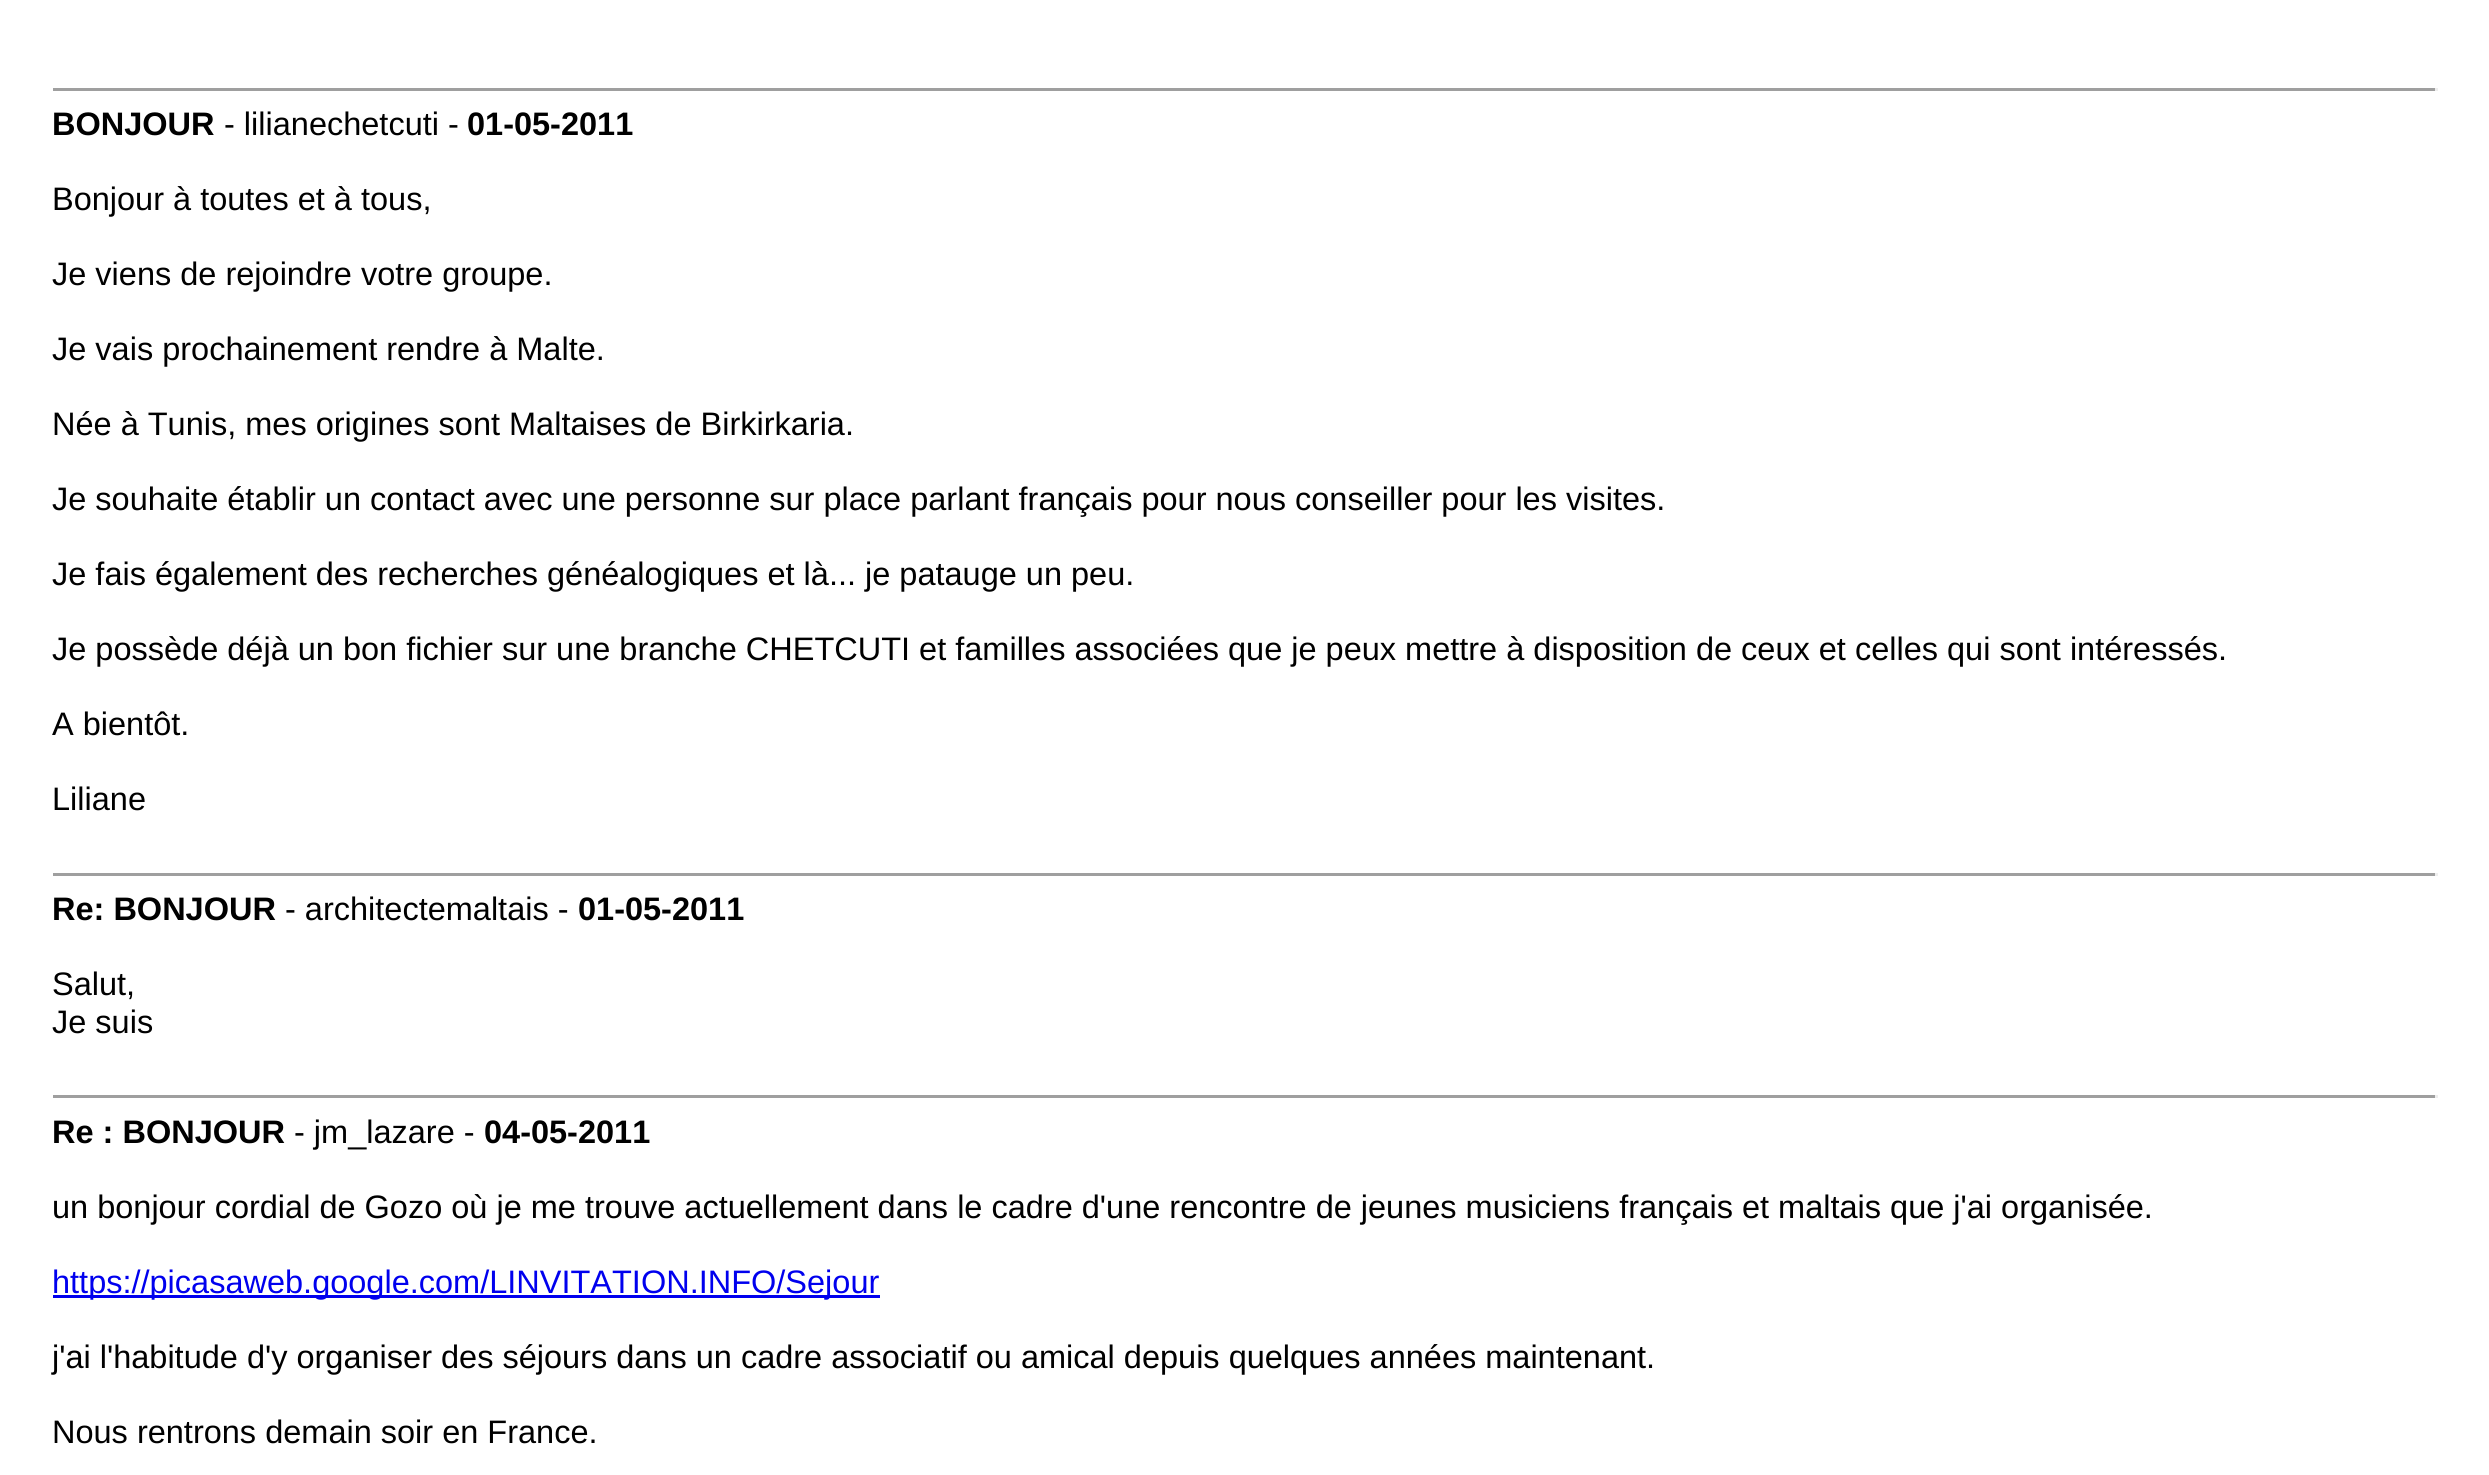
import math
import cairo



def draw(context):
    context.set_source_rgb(1, 1, 1)
    context.paint()
    context.set_source_rgb(159 / 255, 159 / 255, 159 / 255)
    context.rectangle(53, 88, 2385, 3)
    context.fill()
    context.set_source_rgb(238 / 255, 238 / 255, 238 / 255)
    context.rectangle(2435, 88, 3, 3)
    context.fill()
    context.set_source_rgb(159 / 255, 159 / 255, 159 / 255)
    context.rectangle(53, 873, 2385, 3)
    context.fill()
    context.set_source_rgb(238 / 255, 238 / 255, 238 / 255)
    context.rectangle(2435, 873, 3, 3)
    context.fill()
    context.set_source_rgb(159 / 255, 159 / 255, 159 / 255)
    context.rectangle(53, 1095, 2385, 3)
    context.fill()
    context.set_source_rgb(238 / 255, 238 / 255, 238 / 255)
    context.rectangle(2435, 1095, 3, 3)
    context.fill()
    context.set_source_rgb(0, 0, 238 / 255)
    context.rectangle(53, 1295, 827, 3)
    context.fill()
    context.select_font_face("Liberation Sans", cairo.FontSlant.NORMAL, cairo.FontWeight.BOLD)
    context.set_font_size(32.5)
    context.set_source_rgb(0, 0, 0)
    context.move_to(52, 135)
    context.show_text("BONJOUR")
    context.select_font_face("Liberation Sans")
    context.move_to(224, 135)
    context.show_text("- lilianechetcuti -")
    context.select_font_face("Liberation Sans", cairo.FontSlant.NORMAL, cairo.FontWeight.BOLD)
    context.move_to(467, 135)
    context.show_text("01-05-2011")
    context.select_font_face("Liberation Sans")
    context.move_to(52, 210)
    context.show_text("Bonjour à toutes et à tous,")
    context.move_to(52, 285)
    context.show_text("Je viens de rejoindre votre groupe.")
    context.move_to(52, 360)
    context.show_text("Je vais prochainement rendre à Malte.")
    context.move_to(52, 435)
    context.show_text("Née à Tunis, mes origines sont Maltaises de Birkirkaria.")
    context.move_to(52, 510)
    context.show_text("Je souhaite établir un contact avec une personne sur place parlant français pour nous conseiller pour les visites.")
    context.move_to(52, 585)
    context.show_text("Je fais également des recherches généalogiques et là... je patauge un peu.")
    context.move_to(52, 660)
    context.show_text("Je possède déjà un bon fichier sur une branche CHETCUTI et familles associées que je peux mettre à disposition de ceux et celles qui sont intéressés.")
    context.move_to(52, 735)
    context.show_text("A bientôt.")
    context.move_to(52, 810)
    context.show_text("Liliane")
    context.select_font_face("Liberation Sans", cairo.FontSlant.NORMAL, cairo.FontWeight.BOLD)
    context.move_to(52, 920)
    context.show_text("Re: BONJOUR")
    context.select_font_face("Liberation Sans")
    context.move_to(285, 920)
    context.show_text("- architectemaltais -")
    context.select_font_face("Liberation Sans", cairo.FontSlant.NORMAL, cairo.FontWeight.BOLD)
    context.move_to(578, 920)
    context.show_text("01-05-2011")
    context.select_font_face("Liberation Sans")
    context.move_to(52, 995)
    context.show_text("Salut,")
    context.move_to(52, 1033)
    context.show_text("Je suis")
    context.select_font_face("Liberation Sans", cairo.FontSlant.NORMAL, cairo.FontWeight.BOLD)
    context.move_to(52, 1143)
    context.show_text("Re : BONJOUR")
    context.select_font_face("Liberation Sans")
    context.move_to(294, 1143)
    context.show_text("- jm_lazare -")
    context.select_font_face("Liberation Sans", cairo.FontSlant.NORMAL, cairo.FontWeight.BOLD)
    context.move_to(484, 1143)
    context.show_text("04-05-2011")
    context.select_font_face("Liberation Sans")
    context.move_to(52, 1218)
    context.show_text("un bonjour cordial de Gozo où je me trouve actuellement dans le cadre d'une rencontre de jeunes musiciens français et maltais que j'ai organisée.")
    context.set_source_rgb(0, 0, 238 / 255)
    context.move_to(52, 1293)
    context.show_text("https://picasaweb.google.com/LINVITATION.INFO/Sejour")
    context.set_source_rgb(0, 0, 0)
    context.move_to(52, 1368)
    context.show_text("j'ai l'habitude d'y organiser des séjours dans un cadre associatif ou amical depuis quelques années maintenant.")
    context.move_to(52, 1443)
    context.show_text("Nous rentrons demain soir en France.")


surface = cairo.ImageSurface(cairo.Format.RGB24, 2489, 1475)
context = cairo.Context(surface)
options = cairo.FontOptions()
options.set_hint_metrics(cairo.HintMetrics.OFF)
options.set_hint_style(cairo.HintStyle.NONE)
context.set_font_options(options)
context.set_miter_limit(4)
draw(context)
surface.write_to_png("out.png")
